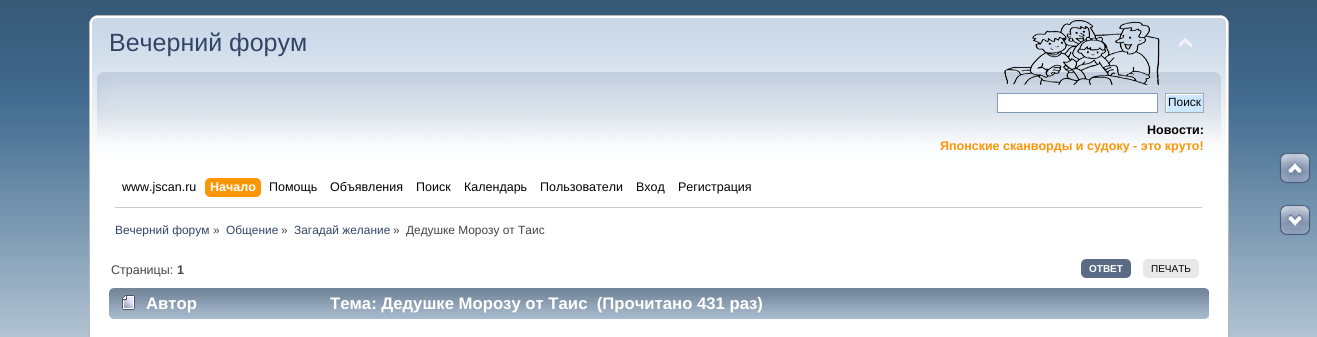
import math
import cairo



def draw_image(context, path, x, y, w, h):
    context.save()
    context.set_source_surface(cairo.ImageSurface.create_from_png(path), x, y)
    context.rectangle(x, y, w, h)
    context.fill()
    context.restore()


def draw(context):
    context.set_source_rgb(1, 1, 1)
    context.paint()
    draw_image(context, "images/1.png", 0, 0, 1317, 337)
    context.set_source_rgb(254 / 255, 254 / 255, 254 / 255)
    context.new_path()
    context.move_to(99, 15)
    context.line_to(1219, 15)
    context.curve_to(1224.5, 15, 1229, 19.5, 1229, 25)
    context.line_to(1229, 200)
    context.line_to(89, 200)
    context.line_to(89, 25)
    context.curve_to(89, 19.5, 93.5, 15, 99, 15)
    context.close_path()
    context.fill()
    draw_image(context, "images/2.png", 89, 15, 1140, 185)
    draw_image(context, "images/3.png", 1216, 15, 13, 185)
    draw_image(context, "images/4.png", 1004, 20, 156, 65)
    draw_image(context, "images/5.png", 1178, 37, 15, 12)
    context.set_source_rgb(1, 1, 1)
    context.rectangle(997.5, 93.5, 160, 19)
    context.fill_preserve()
    context.set_source_rgb(127 / 255, 157 / 255, 185 / 255)
    context.set_line_width(1)
    context.stroke()
    draw_image(context, "images/6.png", 1166, 94, 37, 18)
    context.rectangle(1165.5, 93.5, 38, 19)
    context.set_source_rgb(170 / 255, 170 / 255, 170 / 255)
    context.stroke()
    draw_image(context, "images/7.png", 210, 178, 51, 19)
    draw_image(context, "images/8.png", 205, 178, 5, 19)
    context.set_source_rgb(1, 1, 1)
    context.rectangle(90, 200, 1138, 137)
    context.fill()
    context.set_source_rgb(183 / 255, 183 / 255, 183 / 255)
    context.rectangle(89, 200, 1, 137)
    context.fill()
    context.rectangle(1228, 200, 1, 137)
    context.fill()
    context.set_source_rgb(204 / 255, 204 / 255, 204 / 255)
    context.rectangle(115, 207, 1087, 1)
    context.fill()
    draw_image(context, "images/9.png", 1280, 153, 30, 30)
    draw_image(context, "images/10.png", 1279, 152, 32, 32)
    draw_image(context, "images/11.png", 1280, 205, 30, 30)
    draw_image(context, "images/12.png", 1279, 204, 32, 32)
    context.set_source_rgb(90 / 255, 108 / 255, 133 / 255)
    context.rectangle(1086, 259, 40, 19)
    context.fill()
    draw_image(context, "images/13.png", 1081, 259, 5, 19)
    draw_image(context, "images/14.png", 1126, 259, 5, 19)
    context.set_source_rgb(232 / 255, 232 / 255, 232 / 255)
    context.rectangle(1147, 259, 48, 19)
    context.fill()
    draw_image(context, "images/15.png", 1143, 259, 4, 19)
    draw_image(context, "images/16.png", 1195, 259, 4, 19)
    draw_image(context, "images/17.png", 109, 288, 1096, 31)
    draw_image(context, "images/18.png", 1205, 288, 4, 31)
    draw_image(context, "images/19.png", 122, 295, 13, 15)
    context.select_font_face("Liberation Sans")
    context.set_font_size(25)
    context.set_source_rgb(51 / 255, 68 / 255, 102 / 255)
    context.move_to(109, 51)
    context.show_text("Вечерний форум")
    context.set_font_size(11.9)
    context.set_source_rgb(0, 0, 0)
    context.move_to(1168, 106)
    context.show_text("Поиск")
    context.select_font_face("Liberation Sans", cairo.FontSlant.NORMAL, cairo.FontWeight.BOLD)
    context.set_font_size(12.5)
    context.move_to(1147, 134)
    context.show_text("Новости:")
    context.set_source_rgb(253 / 255, 150 / 255, 4 / 255)
    context.move_to(940, 150)
    context.show_text("Японские сканворды и судоку - это круто!")
    context.select_font_face("Liberation Sans")
    context.set_source_rgb(0, 0, 0)
    context.move_to(122, 191)
    context.show_text("www.jscan.ru")
    context.select_font_face("Liberation Sans", cairo.FontSlant.NORMAL, cairo.FontWeight.BOLD)
    context.set_source_rgb(1, 1, 1)
    context.move_to(210, 191)
    context.show_text("Начало")
    context.select_font_face("Liberation Sans")
    context.set_source_rgb(0, 0, 0)
    context.move_to(269, 191)
    context.show_text("Помощь")
    context.move_to(330, 191)
    context.show_text("Объявления")
    context.move_to(416, 191)
    context.show_text("Поиск")
    context.move_to(464, 191)
    context.show_text("Календарь")
    context.move_to(540, 191)
    context.show_text("Пользователи")
    context.move_to(636, 191)
    context.show_text("Вход")
    context.move_to(678, 191)
    context.show_text("Регистрация")
    context.set_font_size(11.9)
    context.set_source_rgb(51 / 255, 68 / 255, 102 / 255)
    context.move_to(115, 234)
    context.show_text("Вечерний форум")
    context.set_source_rgb(68 / 255, 68 / 255, 68 / 255)
    context.move_to(213, 234)
    context.show_text("»")
    context.set_source_rgb(51 / 255, 68 / 255, 102 / 255)
    context.move_to(226, 234)
    context.show_text("Общение")
    context.set_source_rgb(68 / 255, 68 / 255, 68 / 255)
    context.move_to(281, 234)
    context.show_text("»")
    context.set_source_rgb(51 / 255, 68 / 255, 102 / 255)
    context.move_to(294, 234)
    context.show_text("Загадай желание")
    context.set_source_rgb(68 / 255, 68 / 255, 68 / 255)
    context.move_to(393, 234)
    context.show_text("»")
    context.move_to(406, 234)
    context.show_text("Дедушке Морозу от Таис")
    context.set_font_size(12.5)
    context.move_to(111, 274)
    context.show_text("Страницы:")
    context.select_font_face("Liberation Sans", cairo.FontSlant.NORMAL, cairo.FontWeight.BOLD)
    context.move_to(177, 274)
    context.show_text("1")
    context.set_font_size(10)
    context.set_source_rgb(1, 1, 1)
    context.move_to(1089, 272)
    context.show_text("ОТВЕТ")
    context.select_font_face("Liberation Sans")
    context.set_source_rgb(0, 0, 0)
    context.move_to(1151, 272)
    context.show_text("ПЕЧАТЬ")
    context.select_font_face("Liberation Sans", cairo.FontSlant.NORMAL, cairo.FontWeight.BOLD)
    context.set_font_size(16.7)
    context.set_source_rgb(1, 1, 1)
    context.move_to(146, 309)
    context.show_text("Автор")
    context.move_to(330, 309)
    context.show_text("Тема: Дедушке Морозу от Таис  (Прочитано 431 раз)")


surface = cairo.ImageSurface(cairo.Format.RGB24, 1317, 337)
context = cairo.Context(surface)
options = cairo.FontOptions()
options.set_hint_metrics(cairo.HintMetrics.OFF)
options.set_hint_style(cairo.HintStyle.NONE)
context.set_font_options(options)
context.set_miter_limit(4)
draw(context)
surface.write_to_png("out.png")
